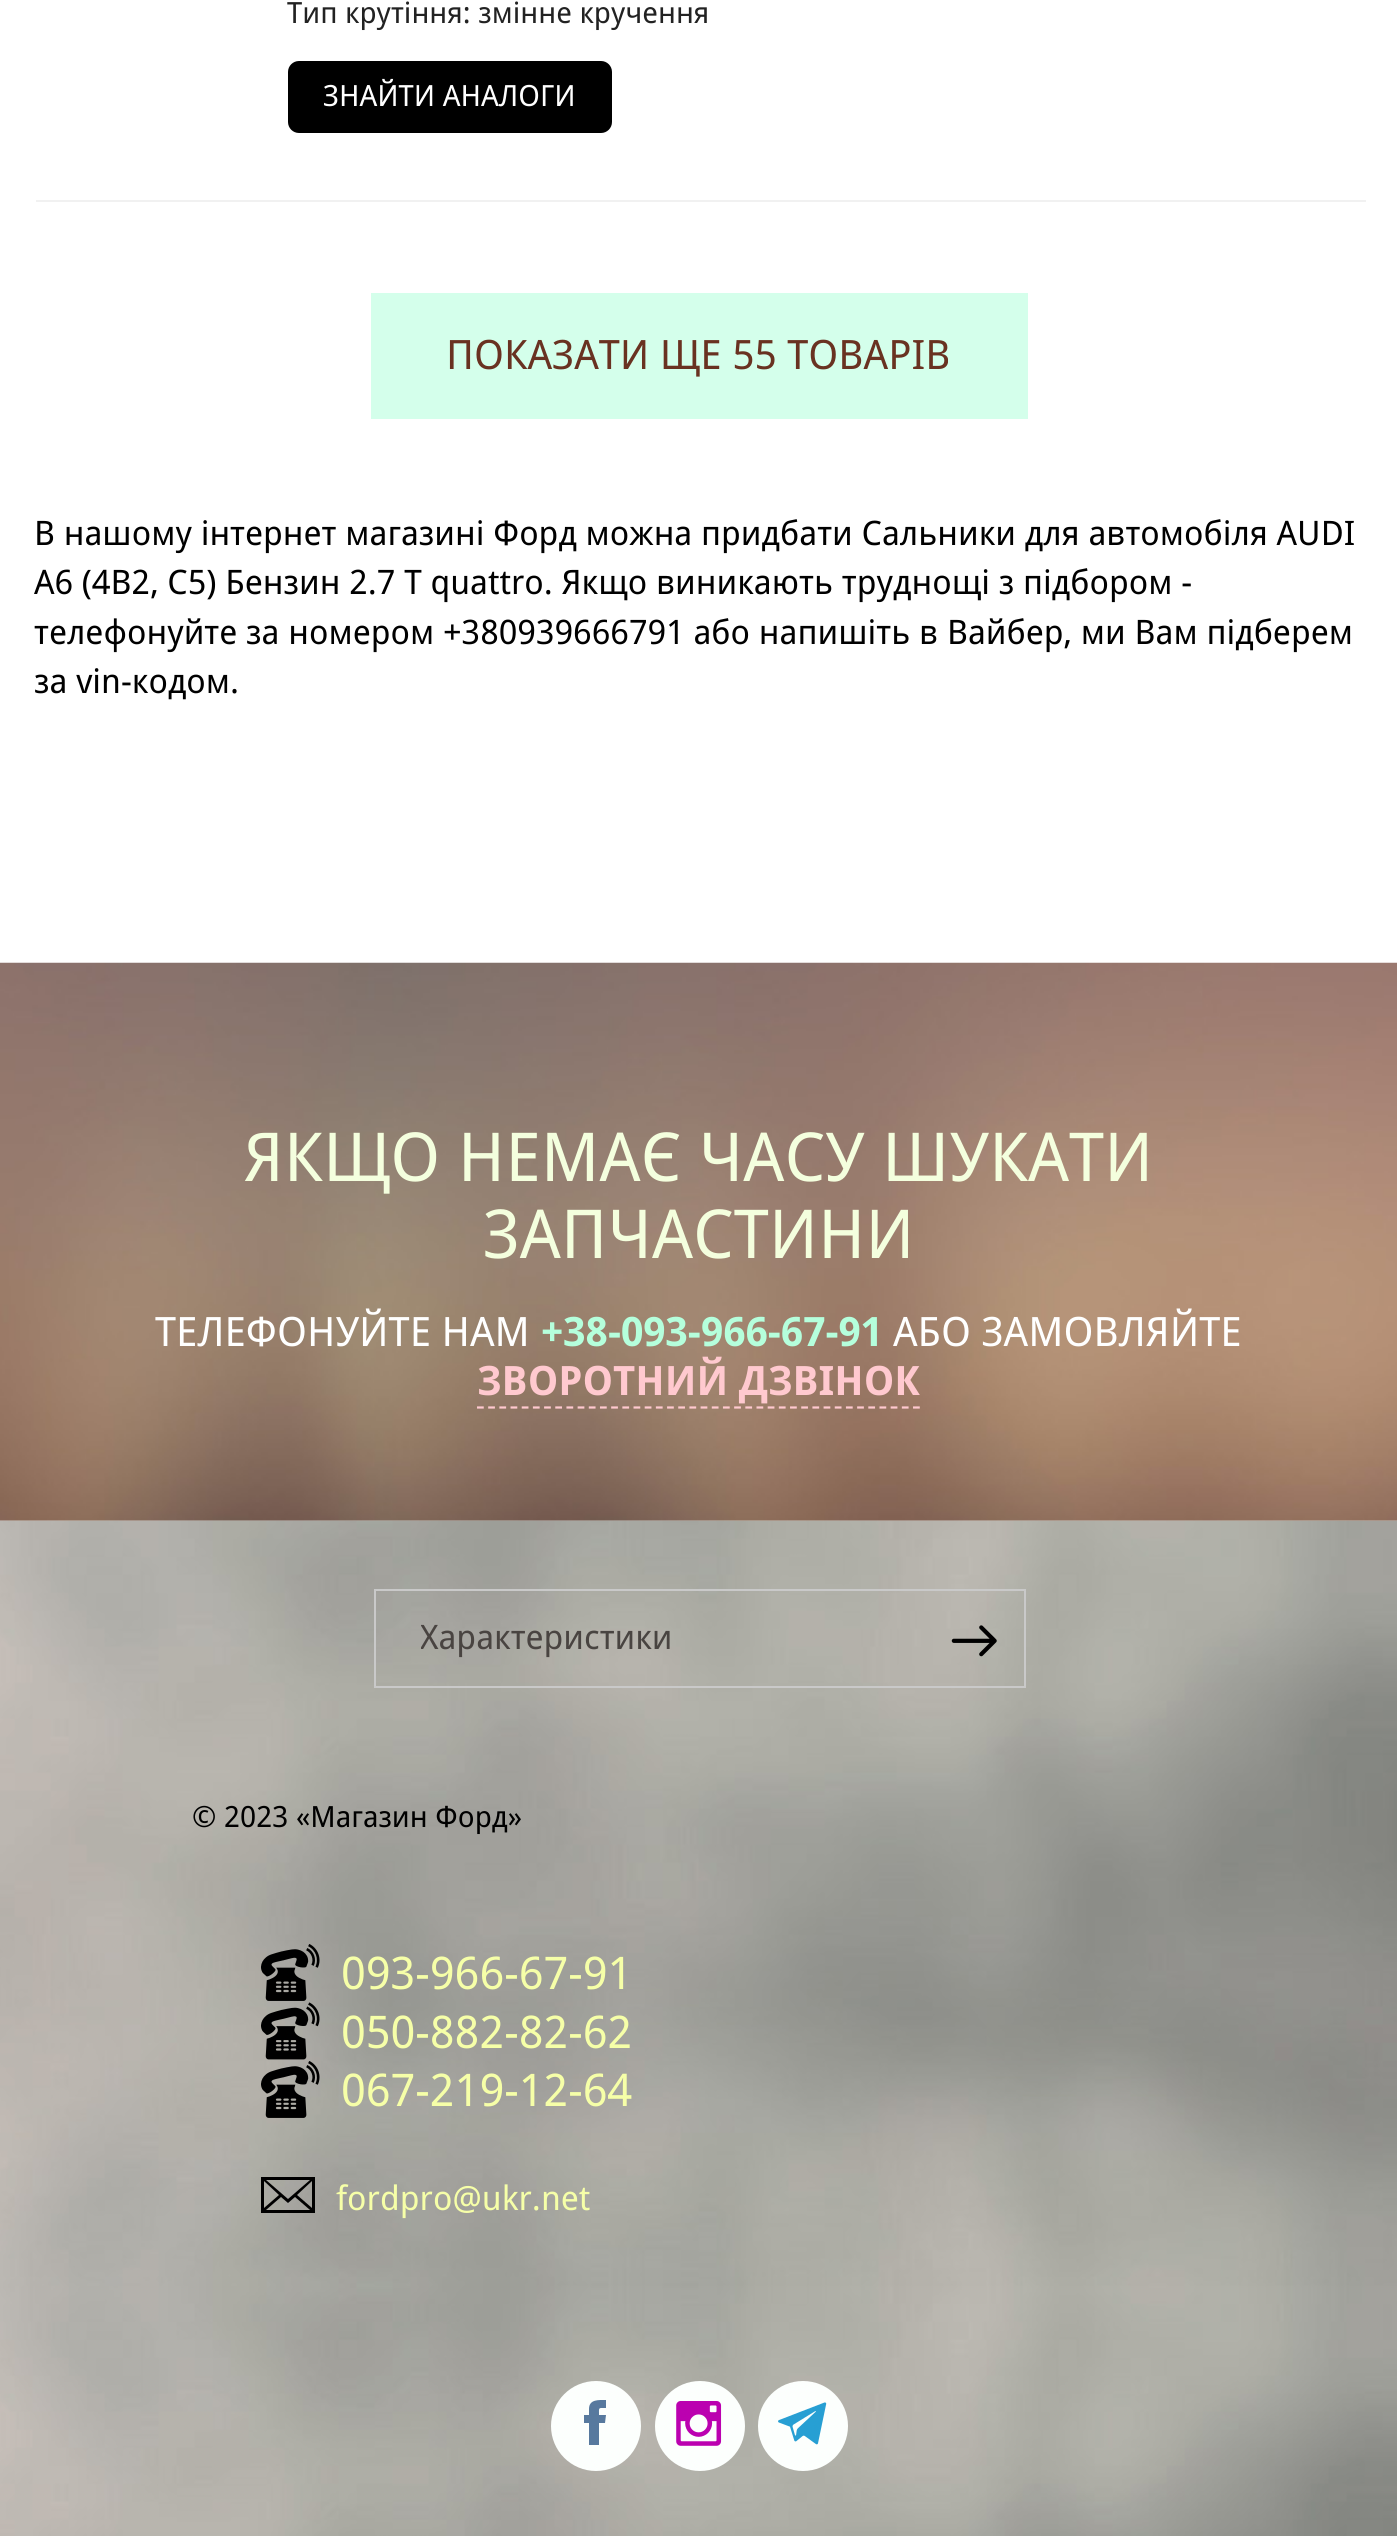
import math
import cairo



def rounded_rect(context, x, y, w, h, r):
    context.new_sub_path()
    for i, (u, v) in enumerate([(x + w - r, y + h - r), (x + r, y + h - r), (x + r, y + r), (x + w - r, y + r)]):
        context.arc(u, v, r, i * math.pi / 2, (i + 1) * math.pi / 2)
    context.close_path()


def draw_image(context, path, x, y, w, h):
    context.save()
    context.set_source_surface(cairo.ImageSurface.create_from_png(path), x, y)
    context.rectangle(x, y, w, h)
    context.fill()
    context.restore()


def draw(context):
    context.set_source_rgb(1, 1, 1)
    context.paint()
    context.set_source_rgb(0, 0, 0)
    rounded_rect(context, 289, 62, 322, 70, 10)
    context.fill_preserve()
    context.stroke()
    context.set_source_rgb(241 / 255, 241 / 255, 241 / 255)
    context.rectangle(36, 200, 1330, 2)
    context.fill()
    context.set_source_rgb(212 / 255, 1, 235 / 255)
    context.rectangle(371, 293, 657, 126)
    context.fill()
    draw_image(context, "images/1.png", 0, 962, 1397, 559)
    context.new_path()
    context.move_to(477, 1407.5)
    context.line_to(920, 1407.5)
    context.set_source_rgb(1, 201 / 255, 207 / 255)
    context.set_line_width(2.2)
    context.set_dash([6.75, 4.43])
    context.stroke()
    draw_image(context, "images/2.png", 0, 1520, 1397, 1016)
    context.rectangle(375, 1590, 650, 97)
    context.set_source_rgb(201 / 255, 201 / 255, 201 / 255)
    context.set_line_width(2)
    context.set_dash([])
    context.stroke()
    draw_image(context, "images/3.png", 951, 1625, 46, 32)
    draw_image(context, "images/4.png", 261, 1944, 59, 57)
    draw_image(context, "images/5.png", 261, 2002, 59, 58)
    draw_image(context, "images/6.png", 261, 2061, 59, 57)
    context.set_source_rgb(0, 0, 0)
    context.new_path()
    context.move_to(261, 2177)
    context.line_to(261, 2213)
    context.line_to(315, 2213)
    context.line_to(315, 2177)
    context.close_path()
    context.move_to(288, 2199)
    context.line_to(266, 2180)
    context.line_to(310, 2180)
    context.close_path()
    context.move_to(279, 2195)
    context.line_to(264, 2208)
    context.line_to(264, 2181)
    context.close_path()
    context.move_to(281, 2197)
    context.line_to(288, 2203)
    context.line_to(295, 2197)
    context.line_to(310, 2210)
    context.line_to(266, 2210)
    context.close_path()
    context.move_to(297, 2195)
    context.line_to(312, 2181)
    context.line_to(312, 2208)
    context.close_path()
    context.fill()
    context.set_source_rgb(252 / 255, 1, 253 / 255)
    context.arc(596, 2426, 45, 0, 2 * math.pi)
    context.fill()
    context.set_source_rgb(87 / 255, 121 / 255, 158 / 255)
    context.new_path()
    context.move_to(589, 2409)
    context.curve_to(589, 2399, 599, 2400, 606, 2400)
    context.line_to(606, 2408)
    context.curve_to(598, 2408, 599, 2407, 599, 2415)
    context.line_to(606, 2415)
    context.line_to(605, 2423)
    context.line_to(599, 2423)
    context.line_to(599, 2445)
    context.line_to(589, 2445)
    context.line_to(589, 2423)
    context.line_to(584, 2423)
    context.line_to(584, 2415)
    context.line_to(589, 2415)
    context.close_path()
    context.fill()
    context.set_source_rgb(252 / 255, 1, 253 / 255)
    context.arc(700, 2426, 45, 0, 2 * math.pi)
    context.fill()
    draw_image(context, "images/7.png", 676, 2401, 46, 45)
    context.arc(803, 2426, 45, 0, 2 * math.pi)
    context.fill()
    draw_image(context, "images/8.png", 778, 2402, 49, 43)
    context.select_font_face("Droid Sans")
    context.set_font_size(29.25)
    context.set_source_rgb(34 / 255, 34 / 255, 34 / 255)
    context.move_to(287, 23)
    context.show_text("Тип крутіння: змінне кручення")
    context.set_source_rgb(1, 1, 1)
    context.move_to(323, 106)
    context.show_text("ЗНАЙТИ АНАЛОГИ")
    context.set_font_size(40.5)
    context.set_source_rgb(105 / 255, 50 / 255, 33 / 255)
    context.move_to(446, 369)
    context.show_text("ПОКАЗАТИ ЩЕ 55 ТОВАРІВ")
    context.set_font_size(33.75)
    context.set_source_rgb(0, 0, 0)
    context.move_to(34, 545)
    context.show_text("В нашому інтернет магазині Форд можна придбати Сальники для автомобіля AUDI")
    context.move_to(34, 594)
    context.show_text("A6 (4B2, C5) Бензин 2.7 T quattro. Якщо виникають труднощі з підбором -")
    context.move_to(34, 644)
    context.show_text("телефонуйте за номером +380939666791 або напишіть в Вайбер, ми Вам підберем")
    context.move_to(34, 693)
    context.show_text("за vin-кодом.")
    context.set_font_size(67.5)
    context.set_source_rgb(244 / 255, 1, 222 / 255)
    context.move_to(244, 1181)
    context.show_text("ЯКЩО НЕМАЄ ЧАСУ ШУКАТИ")
    context.move_to(483, 1258)
    context.show_text("ЗАПЧАСТИНИ")
    context.set_font_size(40.5)
    context.set_source_rgb(1, 1, 1)
    context.move_to(155, 1346)
    context.show_text("ТЕЛЕФОНУЙТЕ НАМ")
    context.select_font_face("Droid Sans", cairo.FontSlant.NORMAL, cairo.FontWeight.BOLD)
    context.set_source_rgb(181 / 255, 1, 220 / 255)
    context.move_to(541, 1346)
    context.show_text("+38-093-966-67-91")
    context.select_font_face("Droid Sans")
    context.set_source_rgb(1, 1, 1)
    context.move_to(893, 1346)
    context.show_text("АБО ЗАМОВЛЯЙТЕ")
    context.select_font_face("Droid Sans", cairo.FontSlant.NORMAL, cairo.FontWeight.BOLD)
    context.set_source_rgb(1, 201 / 255, 207 / 255)
    context.move_to(477, 1395)
    context.show_text("ЗВОРОТНИЙ ДЗВІНОК")
    context.save()
    context.rectangle(421, 1613, 540, 50)
    context.clip()
    context.select_font_face("Droid Sans")
    context.set_font_size(33.75)
    context.set_source_rgb(73 / 255, 68 / 255, 65 / 255)
    context.move_to(420, 1649)
    context.show_text("Характеристики")
    context.restore()
    context.select_font_face("Droid Sans")
    context.set_font_size(29.25)
    context.set_source_rgb(0, 0, 0)
    context.move_to(192, 1827)
    context.show_text("© 2023 «Магазин Форд»")
    context.set_font_size(45)
    context.set_source_rgb(246 / 255, 1, 168 / 255)
    context.move_to(341, 1989)
    context.show_text("093-966-67-91")
    context.move_to(341, 2048)
    context.show_text("050-882-82-62")
    context.move_to(341, 2106)
    context.show_text("067-219-12-64")
    context.set_font_size(33.75)
    context.move_to(336, 2210)
    context.show_text("fordpro@ukr.net")


surface = cairo.ImageSurface(cairo.Format.RGB24, 1397, 2536)
context = cairo.Context(surface)
options = cairo.FontOptions()
options.set_hint_metrics(cairo.HintMetrics.OFF)
options.set_hint_style(cairo.HintStyle.NONE)
context.set_font_options(options)
context.set_miter_limit(4)
draw(context)
surface.write_to_png("out.png")
